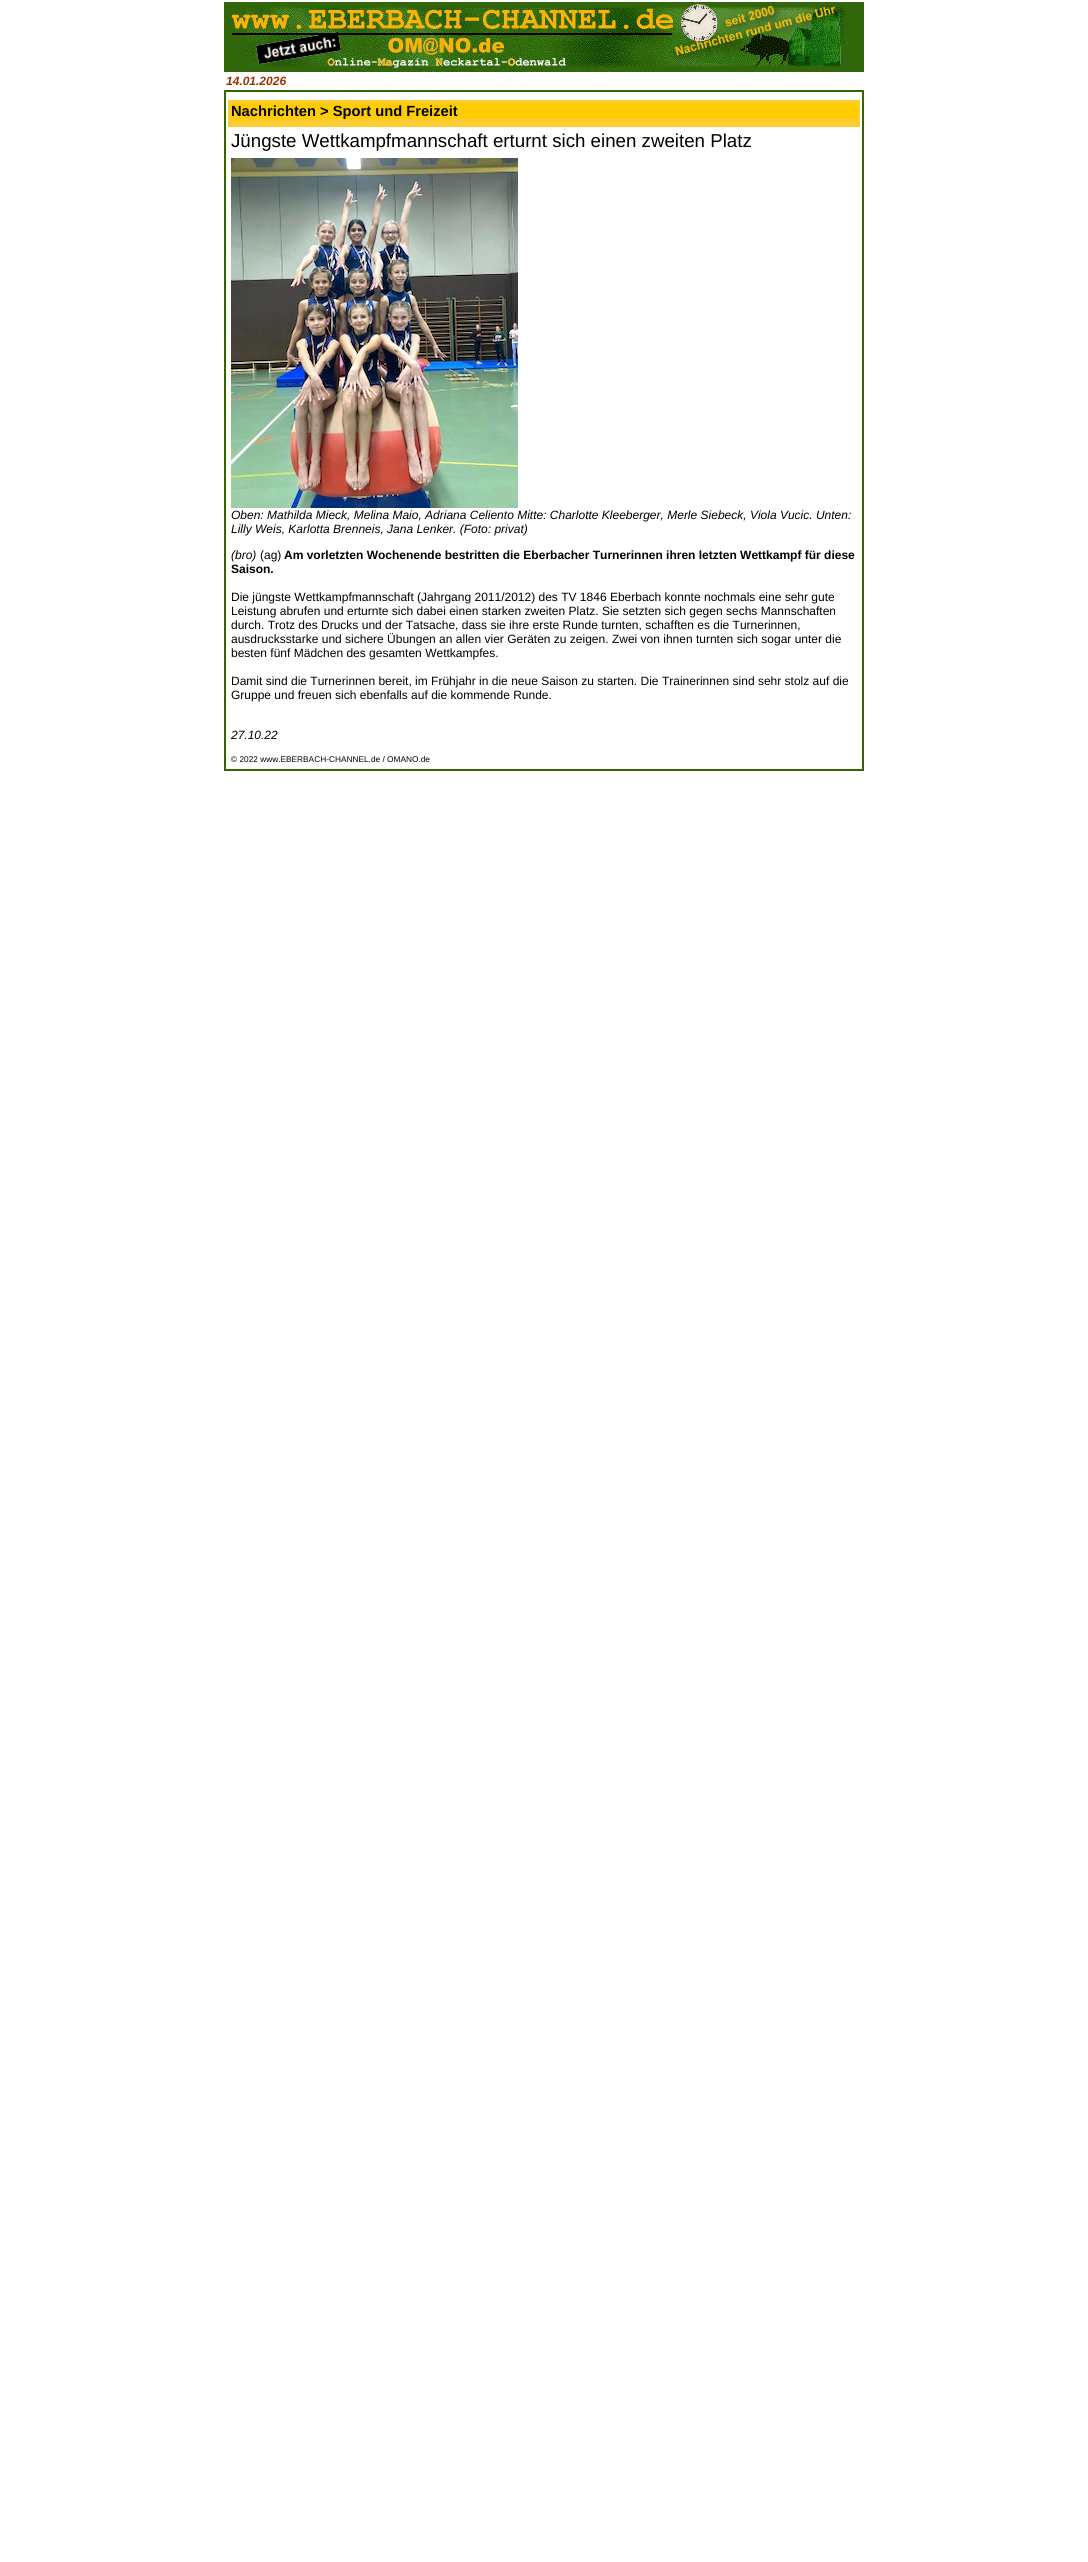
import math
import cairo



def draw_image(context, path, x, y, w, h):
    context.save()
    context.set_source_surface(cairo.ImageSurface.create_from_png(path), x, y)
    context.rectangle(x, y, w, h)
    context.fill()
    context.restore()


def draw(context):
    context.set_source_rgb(1, 1, 1)
    context.paint()
    draw_image(context, "images/1.png", 224, 2, 640, 70)
    context.set_source_rgb(51 / 255, 102 / 255, 0)
    context.rectangle(224, 90, 640, 681)
    context.fill()
    context.set_source_rgb(1, 1, 1)
    context.rectangle(226, 92, 636, 677)
    context.fill()
    context.set_source_rgb(1, 204 / 255, 51 / 255)
    context.rectangle(228, 100, 632, 27)
    context.fill()
    context.set_source_rgb(1, 204 / 255, 0)
    context.rectangle(231, 103, 626, 16)
    context.fill()
    draw_image(context, "images/2.png", 231, 158, 287, 350)
    context.select_font_face("Liberation Sans", cairo.FontSlant.ITALIC, cairo.FontWeight.BOLD)
    context.set_font_size(12)
    context.set_source_rgb(153 / 255, 51 / 255, 0)
    context.move_to(226, 85)
    context.show_text("14.01.2026")
    context.select_font_face("Liberation Sans", cairo.FontSlant.NORMAL, cairo.FontWeight.BOLD)
    context.set_font_size(14.7)
    context.set_source_rgb(0, 0, 0)
    context.move_to(231, 116)
    context.show_text("Nachrichten > Sport und Freizeit")
    context.select_font_face("Liberation Sans")
    context.set_font_size(18.7)
    context.move_to(231, 147)
    context.show_text("Jüngste Wettkampfmannschaft erturnt sich einen zweiten Platz")
    context.select_font_face("Liberation Sans", cairo.FontSlant.ITALIC)
    context.set_font_size(12)
    context.move_to(231, 519)
    context.show_text("Oben: Mathilda Mieck, Melina Maio, Adriana Celiento Mitte: Charlotte Kleeberger, Merle Siebeck, Viola Vucic. Unten:")
    context.move_to(231, 533)
    context.show_text("Lilly Weis, Karlotta Brenneis, Jana Lenker. (Foto: privat)")
    context.move_to(231, 559)
    context.show_text("(bro)")
    context.select_font_face("Liberation Sans")
    context.move_to(260, 559)
    context.show_text("(ag)")
    context.select_font_face("Liberation Sans", cairo.FontSlant.NORMAL, cairo.FontWeight.BOLD)
    context.move_to(284, 559)
    context.show_text("Am vorletzten Wochenende bestritten die Eberbacher Turnerinnen ihren letzten Wettkampf für diese")
    context.move_to(231, 573)
    context.show_text("Saison.")
    context.select_font_face("Liberation Sans")
    context.move_to(231, 601)
    context.show_text("Die jüngste Wettkampfmannschaft (Jahrgang 2011/2012) des TV 1846 Eberbach konnte nochmals eine sehr gute")
    context.move_to(231, 615)
    context.show_text("Leistung abrufen und erturnte sich dabei einen starken zweiten Platz. Sie setzten sich gegen sechs Mannschaften")
    context.move_to(231, 629)
    context.show_text("durch. Trotz des Drucks und der Tatsache, dass sie ihre erste Runde turnten, schafften es die Turnerinnen,")
    context.move_to(231, 643)
    context.show_text("ausdrucksstarke und sichere Übungen an allen vier Geräten zu zeigen. Zwei von ihnen turnten sich sogar unter die")
    context.move_to(231, 657)
    context.show_text("besten fünf Mädchen des gesamten Wettkampfes.")
    context.move_to(231, 685)
    context.show_text("Damit sind die Turnerinnen bereit, im Frühjahr in die neue Saison zu starten. Die Trainerinnen sind sehr stolz auf die")
    context.move_to(231, 699)
    context.show_text("Gruppe und freuen sich ebenfalls auf die kommende Runde.")
    context.select_font_face("Liberation Sans", cairo.FontSlant.ITALIC)
    context.move_to(231, 739)
    context.show_text("27.10.22")
    context.select_font_face("Liberation Sans")
    context.set_font_size(8.3)
    context.move_to(231, 762)
    context.show_text("© 2022 www.EBERBACH-CHANNEL.de / OMANO.de")


surface = cairo.ImageSurface(cairo.Format.RGB24, 1088, 2562)
context = cairo.Context(surface)
options = cairo.FontOptions()
options.set_hint_metrics(cairo.HintMetrics.OFF)
options.set_hint_style(cairo.HintStyle.NONE)
context.set_font_options(options)
context.set_miter_limit(4)
draw(context)
surface.write_to_png("out.png")
